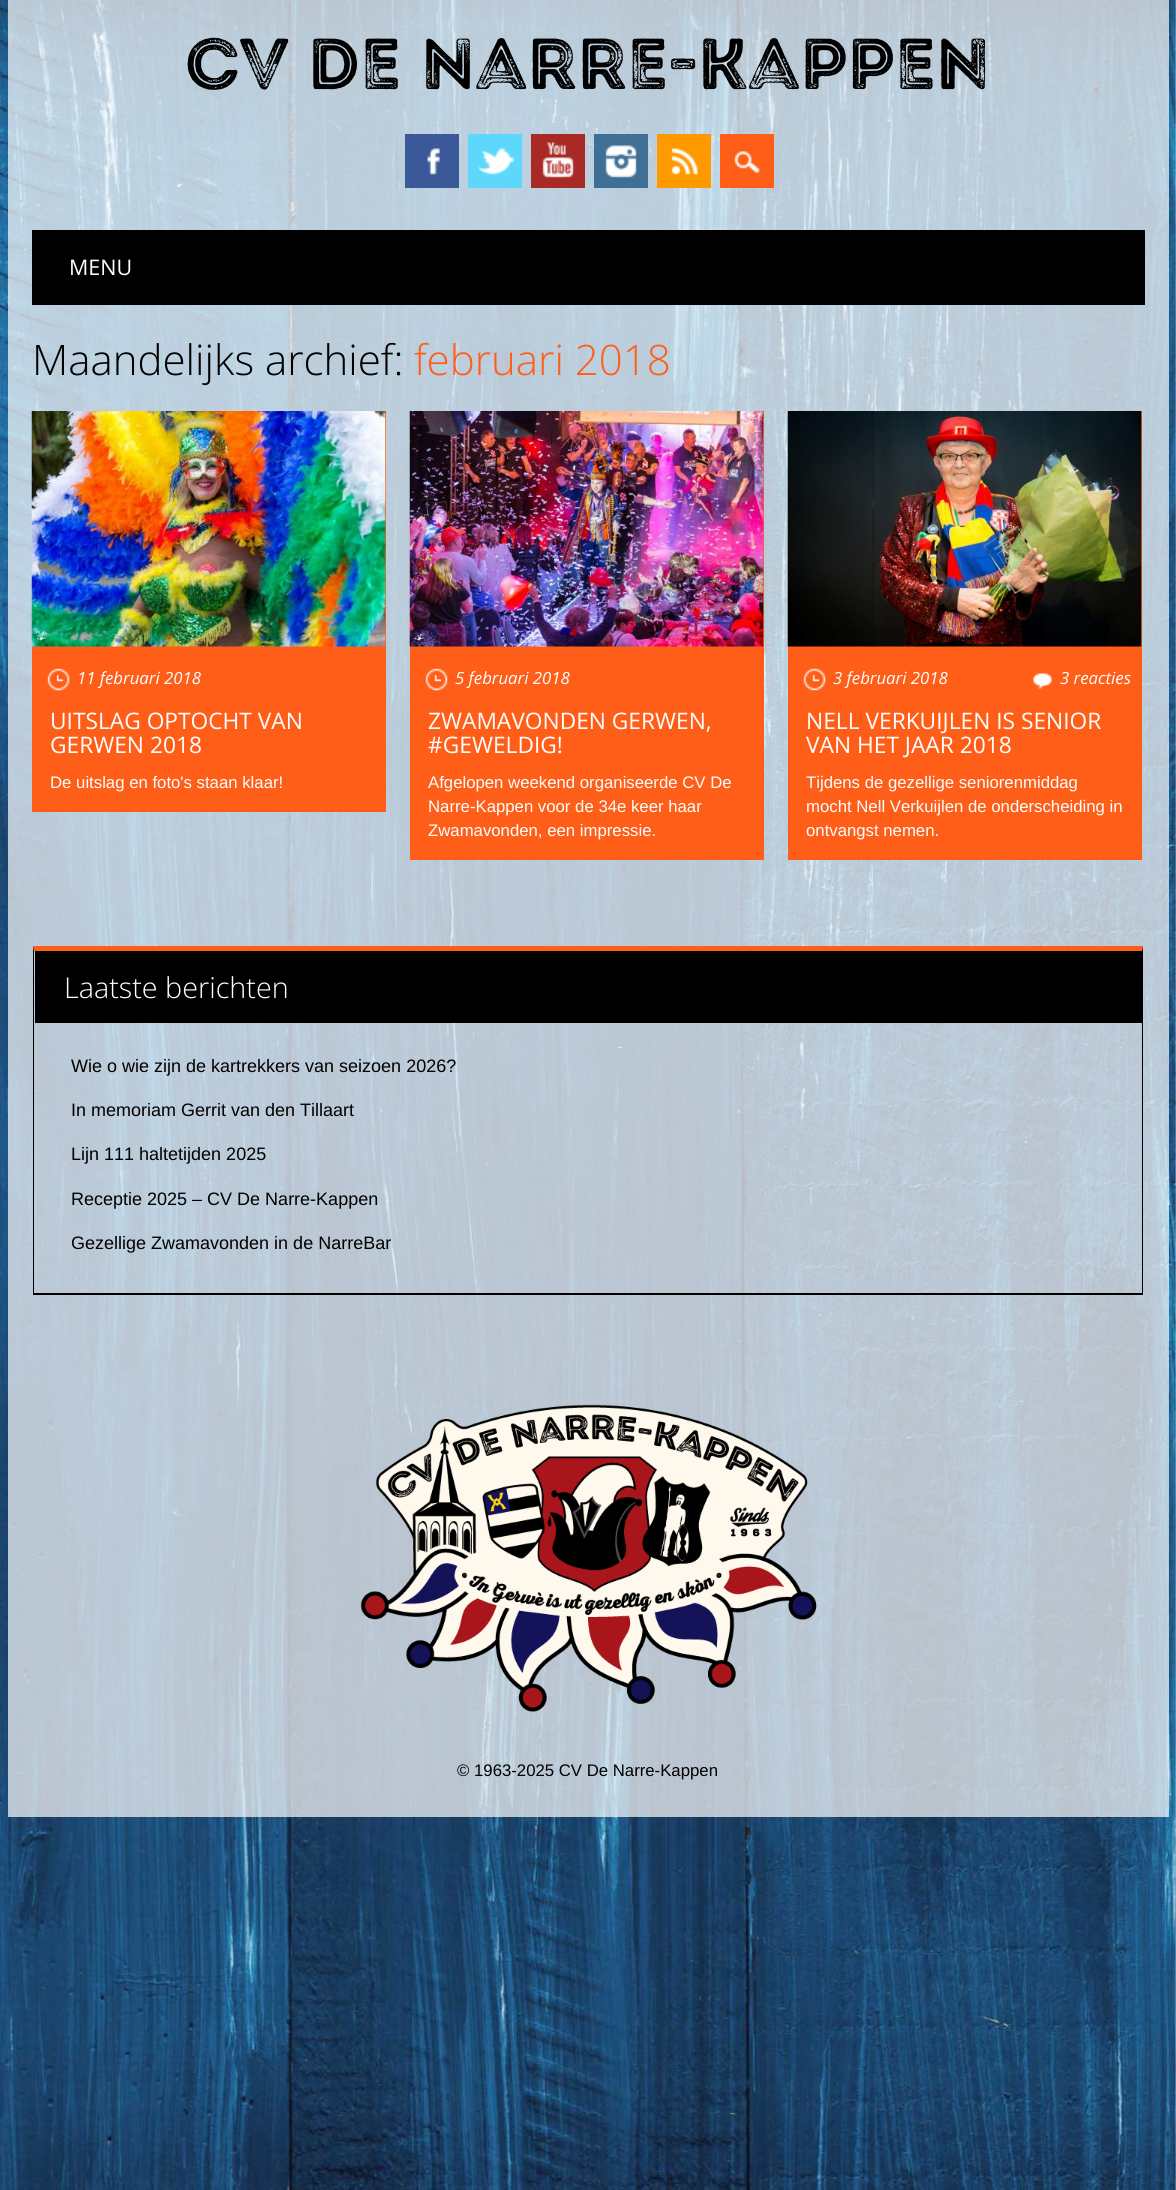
import math
import cairo



def draw_image(context, path, x, y, w, h):
    context.save()
    context.set_source_surface(cairo.ImageSurface.create_from_png(path), x, y)
    context.rectangle(x, y, w, h)
    context.fill()
    context.restore()


def draw(context):
    context.set_source_rgb(1, 1, 1)
    context.paint()
    draw_image(context, "images/1.png", 0, 0, 1176, 2190)
    context.set_source_rgba(1, 1, 1, 0.7)
    context.rectangle(8, 0, 1161, 1817)
    context.fill()
    context.set_source_rgb(59 / 255, 89 / 255, 152 / 255)
    context.rectangle(405, 134, 54, 54)
    context.fill()
    draw_image(context, "images/2.png", 427, 148, 13, 27)
    context.set_source_rgb(93 / 255, 215 / 255, 252 / 255)
    context.rectangle(468, 134, 54, 54)
    context.fill()
    draw_image(context, "images/3.png", 478, 148, 37, 27)
    context.set_source_rgb(169 / 255, 41 / 255, 37 / 255)
    context.rectangle(531, 134, 54, 54)
    context.fill()
    draw_image(context, "images/4.png", 542, 142, 32, 36)
    context.set_source_rgb(64 / 255, 111 / 255, 149 / 255)
    context.rectangle(594, 134, 54, 54)
    context.fill()
    draw_image(context, "images/5.png", 605, 145, 32, 33)
    context.set_source_rgb(254 / 255, 153 / 255, 0)
    context.rectangle(657, 134, 54, 54)
    context.fill()
    draw_image(context, "images/6.png", 671, 148, 27, 27)
    context.set_source_rgb(1, 94 / 255, 25 / 255)
    context.rectangle(720, 134, 54, 54)
    context.fill()
    draw_image(context, "images/7.png", 734, 151, 26, 22)
    context.set_source_rgb(0, 0, 0)
    context.rectangle(32, 230, 1113, 75)
    context.fill()
    context.set_source_rgb(1, 94 / 255, 25 / 255)
    context.rectangle(32, 411, 354, 401)
    context.fill()
    draw_image(context, "images/8.png", 31, 411, 355, 236)
    draw_image(context, "images/9.png", 47, 668, 23, 23)
    context.rectangle(410, 411, 354, 449)
    context.fill()
    draw_image(context, "images/10.png", 409, 411, 355, 236)
    draw_image(context, "images/11.png", 425, 668, 23, 23)
    context.rectangle(788, 411, 354, 449)
    context.fill()
    draw_image(context, "images/12.png", 787, 411, 355, 236)
    draw_image(context, "images/9.png", 803, 668, 23, 23)
    draw_image(context, "images/13.png", 1033, 673, 19, 16)
    context.new_path()
    context.move_to(33, 946)
    context.line_to(1143, 946)
    context.line_to(1142, 951)
    context.line_to(34, 951)
    context.close_path()
    context.fill()
    context.set_source_rgb(0, 0, 0)
    context.new_path()
    context.move_to(1143, 946)
    context.line_to(1143, 1294)
    context.line_to(1142, 1293)
    context.line_to(1142, 951)
    context.close_path()
    context.fill()
    context.rectangle(33, 1293, 1110, 2)
    context.fill()
    context.new_path()
    context.move_to(33, 1294)
    context.line_to(33, 946)
    context.line_to(34, 951)
    context.line_to(34, 1293)
    context.close_path()
    context.fill()
    context.rectangle(35, 951, 1107, 72)
    context.fill()
    draw_image(context, "images/14.png", 360, 1404, 457, 308)
    context.select_font_face("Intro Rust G")
    context.set_font_size(72)
    context.move_to(185, 89)
    context.show_text("CV De Narre-Kappen")
    context.select_font_face("Open Sans")
    context.set_font_size(21.5)
    context.set_source_rgb(1, 1, 1)
    context.move_to(69, 275)
    context.show_text("MENU")
    context.select_font_face("Open Sans Light")
    context.set_font_size(42)
    context.set_source_rgb(0, 0, 0)
    context.move_to(32, 375)
    context.show_text("Maandelijks archief:")
    context.set_source_rgb(1, 94 / 255, 25 / 255)
    context.move_to(414, 375)
    context.show_text("februari 2018")
    context.select_font_face("Open Sans", cairo.FontSlant.ITALIC)
    context.set_font_size(16.75)
    context.set_source_rgb(1, 1, 1)
    context.move_to(77, 684)
    context.show_text("11 februari 2018")
    context.select_font_face("Open Sans")
    context.set_font_size(22.75)
    context.move_to(50, 729)
    context.show_text("UITSLAG OPTOCHT VAN")
    context.move_to(50, 753)
    context.show_text("GERWEN 2018")
    context.select_font_face("Liberation Sans")
    context.set_font_size(16.75)
    context.move_to(50, 788)
    context.show_text("De uitslag en foto's staan klaar!")
    context.select_font_face("Open Sans", cairo.FontSlant.ITALIC)
    context.move_to(455, 684)
    context.show_text("5 februari 2018")
    context.select_font_face("Open Sans")
    context.set_font_size(22.75)
    context.move_to(428, 729)
    context.show_text("ZWAMAVONDEN GERWEN,")
    context.move_to(428, 753)
    context.show_text("#GEWELDIG!")
    context.select_font_face("Liberation Sans")
    context.set_font_size(16.75)
    context.move_to(428, 788)
    context.show_text("Afgelopen weekend organiseerde CV De")
    context.move_to(428, 812)
    context.show_text("Narre-Kappen voor de 34e keer haar")
    context.move_to(428, 836)
    context.show_text("Zwamavonden, een impressie.")
    context.select_font_face("Open Sans", cairo.FontSlant.ITALIC)
    context.move_to(833, 684)
    context.show_text("3 februari 2018")
    context.move_to(1060, 684)
    context.show_text("3 reacties")
    context.select_font_face("Open Sans")
    context.set_font_size(22.75)
    context.move_to(806, 729)
    context.show_text("NELL VERKUIJLEN IS SENIOR")
    context.move_to(806, 753)
    context.show_text("VAN HET JAAR 2018")
    context.select_font_face("Liberation Sans")
    context.set_font_size(16.75)
    context.move_to(806, 788)
    context.show_text("Tijdens de gezellige seniorenmiddag")
    context.move_to(806, 812)
    context.show_text("mocht Nell Verkuijlen de onderscheiding in")
    context.move_to(806, 836)
    context.show_text("ontvangst nemen.")
    context.select_font_face("Open Sans Light")
    context.set_font_size(28.75)
    context.move_to(64, 998)
    context.show_text("Laatste berichten")
    context.select_font_face("Liberation Sans")
    context.set_font_size(18)
    context.set_source_rgb(0, 0, 0)
    context.move_to(71, 1072)
    context.show_text("Wie o wie zijn de kartrekkers van seizoen 2026?")
    context.move_to(71, 1116)
    context.show_text("In memoriam Gerrit van den Tillaart")
    context.move_to(71, 1160)
    context.show_text("Lijn 111 haltetijden 2025")
    context.move_to(71, 1205)
    context.show_text("Receptie 2025 – CV De Narre-Kappen")
    context.move_to(71, 1249)
    context.show_text("Gezellige Zwamavonden in de NarreBar")
    context.set_font_size(16.75)
    context.move_to(457, 1776)
    context.show_text("© 1963-2025 CV De Narre-Kappen")


surface = cairo.ImageSurface(cairo.Format.RGB24, 1176, 2190)
context = cairo.Context(surface)
options = cairo.FontOptions()
options.set_hint_metrics(cairo.HintMetrics.OFF)
options.set_hint_style(cairo.HintStyle.NONE)
context.set_font_options(options)
context.set_miter_limit(4)
draw(context)
surface.write_to_png("out.png")
